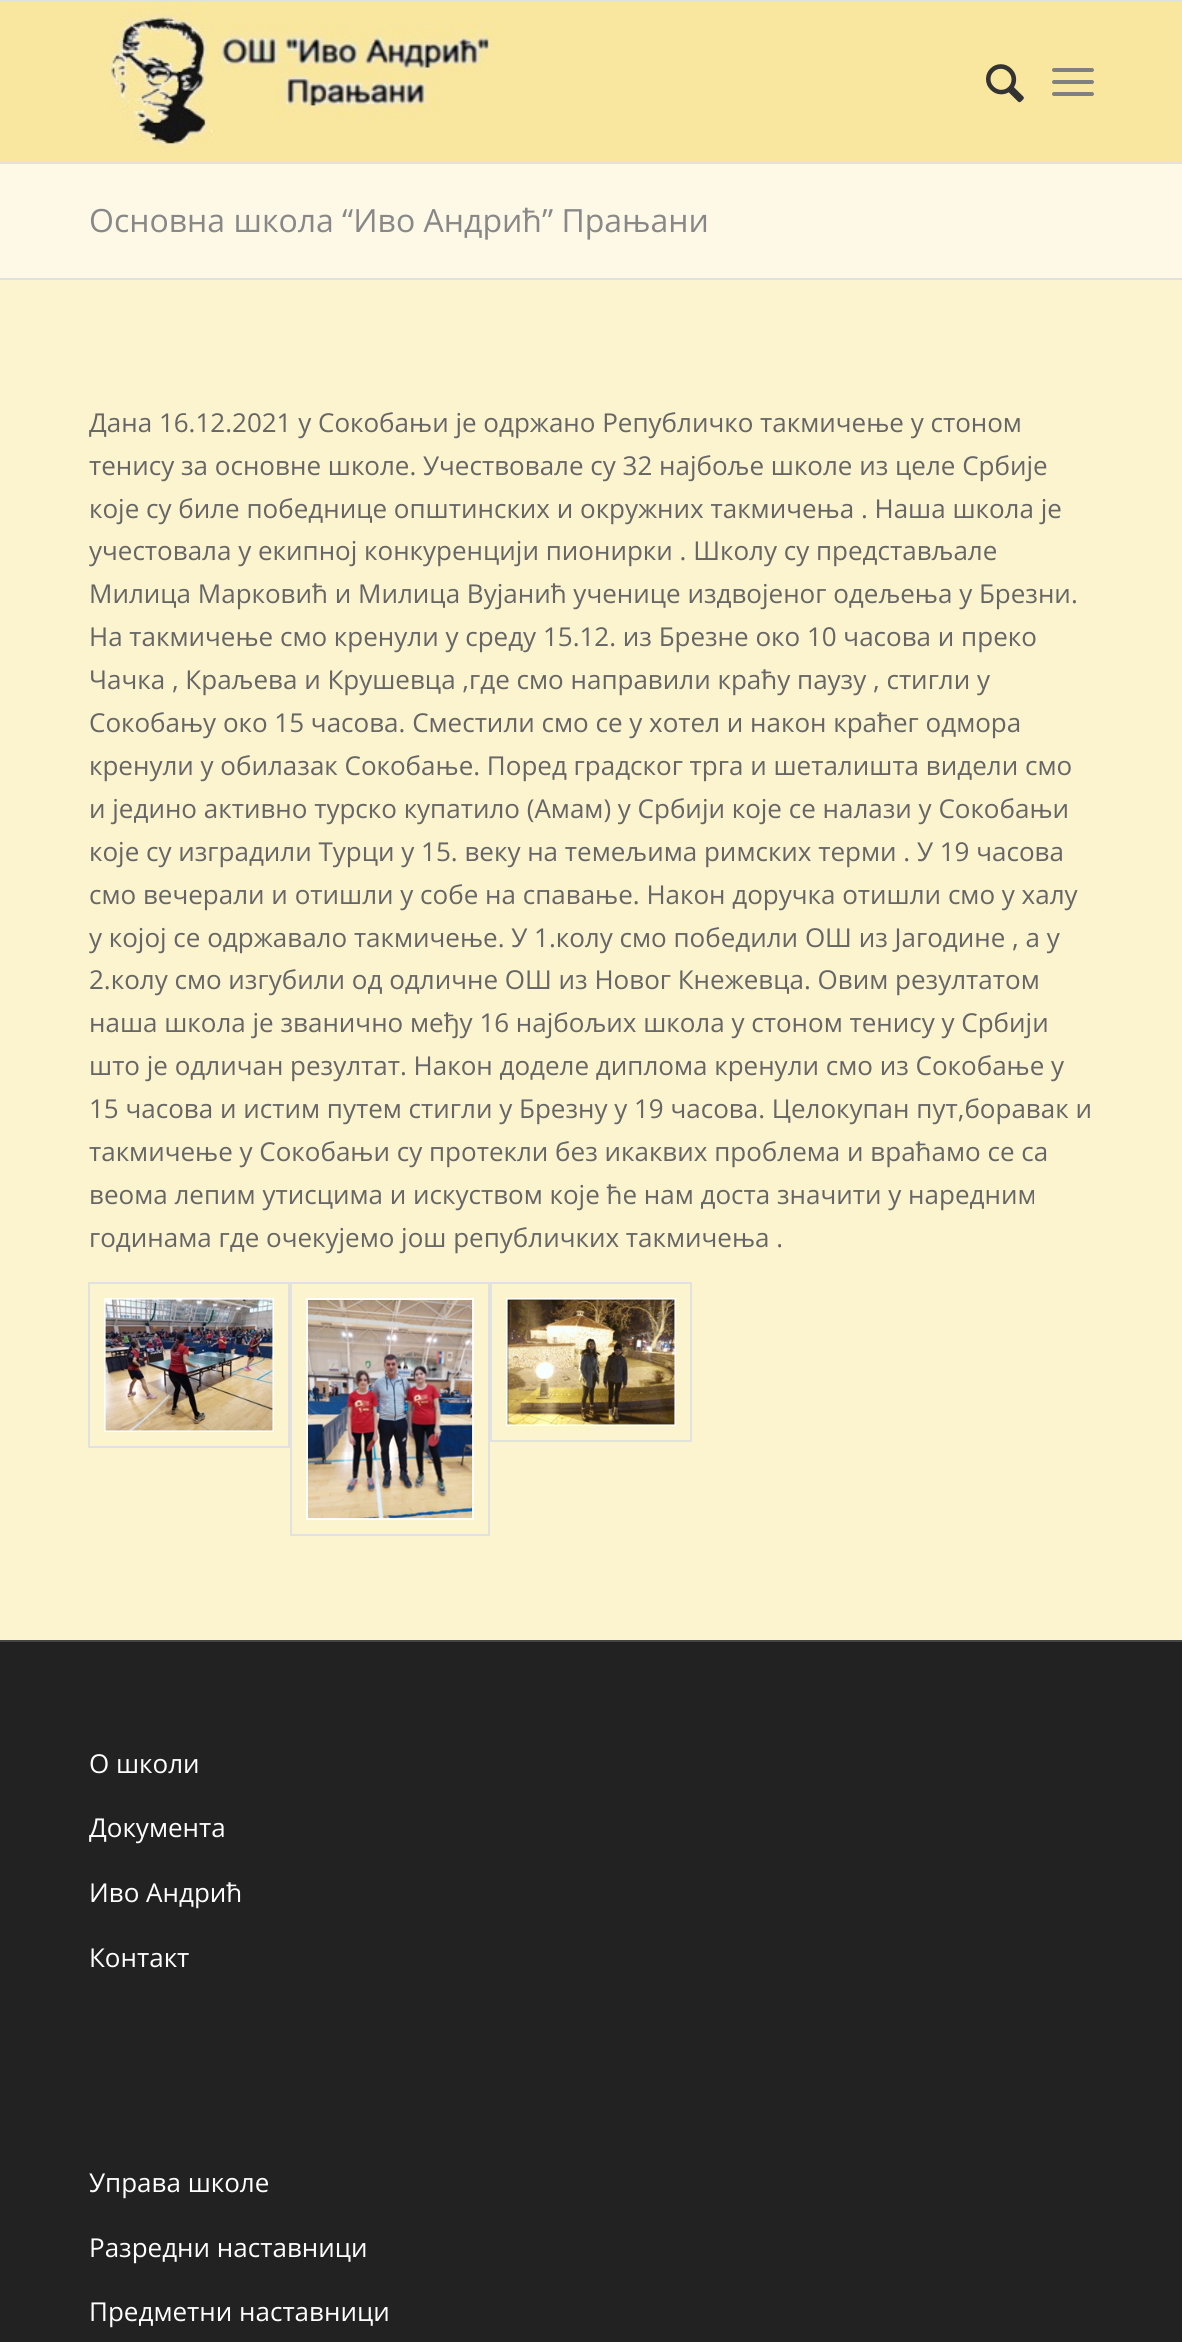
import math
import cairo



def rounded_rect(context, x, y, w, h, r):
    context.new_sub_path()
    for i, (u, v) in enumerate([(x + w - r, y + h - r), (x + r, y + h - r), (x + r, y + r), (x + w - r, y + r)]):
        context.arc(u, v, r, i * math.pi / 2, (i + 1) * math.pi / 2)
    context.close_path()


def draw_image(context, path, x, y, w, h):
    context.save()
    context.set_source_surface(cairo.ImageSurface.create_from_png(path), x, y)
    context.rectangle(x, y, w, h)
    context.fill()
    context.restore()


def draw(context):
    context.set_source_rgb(254 / 255, 249 / 255, 231 / 255)
    context.paint()
    context.set_source_rgb(225 / 255, 225 / 255, 225 / 255)
    context.rectangle(0, 0, 1182, 2)
    context.fill()
    context.rectangle(0, 162, 1182, 2)
    context.fill()
    context.set_source_rgb(249 / 255, 231 / 255, 159 / 255)
    context.rectangle(0, 2, 1182, 160)
    context.fill()
    draw_image(context, "images/1.png", 109, 2, 391, 148)
    draw_image(context, "images/2.png", 986, 64, 38, 39)
    context.set_source_rgb(128 / 255, 128 / 255, 128 / 255)
    rounded_rect(context, 1052, 80, 42, 4, 2)
    context.fill()
    rounded_rect(context, 1052, 68, 42, 4, 2)
    context.fill()
    rounded_rect(context, 1052, 92, 42, 4, 2)
    context.fill()
    context.set_source_rgb(252 / 255, 243 / 255, 207 / 255)
    context.rectangle(0, 280, 1182, 1360)
    context.fill()
    context.set_source_rgb(225 / 255, 225 / 255, 225 / 255)
    context.rectangle(0, 278, 1182, 2)
    context.fill()
    context.rectangle(89, 1283, 200, 164)
    context.stroke()
    draw_image(context, "images/3.png", 104, 1298, 170, 134)
    context.rectangle(291, 1283, 198, 252)
    context.stroke()
    draw_image(context, "images/4.png", 306, 1298, 168, 222)
    context.rectangle(491, 1283, 200, 158)
    context.stroke()
    draw_image(context, "images/5.png", 506, 1298, 170, 128)
    context.set_source_rgb(34 / 255, 34 / 255, 34 / 255)
    context.rectangle(0, 1642, 1182, 700)
    context.fill()
    context.set_source_rgb(68 / 255, 68 / 255, 68 / 255)
    context.rectangle(0, 1640, 1182, 2)
    context.fill()
    context.select_font_face("Open Sans")
    context.set_font_size(32)
    context.set_source_rgb(136 / 255, 136 / 255, 136 / 255)
    context.move_to(89, 232)
    context.show_text("Основна школа “Иво Андрић” Прањани")
    context.set_font_size(26)
    context.set_source_rgb(102 / 255, 102 / 255, 102 / 255)
    context.move_to(89, 432)
    context.show_text("Дана 16.12.2021 у Сокобањи је одржано Републичко такмичење у стоном")
    context.move_to(89, 475)
    context.show_text("тенису за основне школе. Учествовале су 32 најбоље школе из целе Србије")
    context.move_to(89, 518)
    context.show_text("које су биле победнице општинских и окружних такмичења . Наша школа је")
    context.move_to(89, 560)
    context.show_text("учестовала у екипној конкуренцији пионирки . Школу су представљале")
    context.move_to(89, 603)
    context.show_text("Милица Марковић и Милица Вујанић ученице издвојеног одељења у Брезни.")
    context.move_to(89, 646)
    context.show_text("На такмичење смо кренули у среду 15.12. из Брезне око 10 часова и преко")
    context.move_to(89, 689)
    context.show_text("Чачка , Краљева и Крушевца ,где смо направили краћу паузу , стигли у")
    context.move_to(89, 732)
    context.show_text("Сокобању око 15 часова. Сместили смо се у хотел и након краћег одмора")
    context.move_to(89, 775)
    context.show_text("кренули у обилазак Сокобање. Поред градског трга и шеталишта видели смо")
    context.move_to(89, 818)
    context.show_text("и једино активно турско купатило (Амам) у Србији које се налази у Сокобањи")
    context.move_to(89, 861)
    context.show_text("које су изградили Турци у 15. веку на темељима римских терми . У 19 часова")
    context.move_to(89, 904)
    context.show_text("смо вечерали и отишли у собе на спавање. Након доручка отишли смо у халу")
    context.move_to(89, 947)
    context.show_text("у којој се одржавало такмичење. У 1.колу смо победили ОШ из Јагодине , а у")
    context.move_to(89, 989)
    context.show_text("2.колу смо изгубили од одличне ОШ из Новог Кнежевца. Овим резултатом")
    context.move_to(89, 1032)
    context.show_text("наша школа је званично међу 16 најбољих школа у стоном тенису у Србији")
    context.move_to(89, 1075)
    context.show_text("што је одличан резултат. Након доделе диплома кренули смо из Сокобање у")
    context.move_to(89, 1118)
    context.show_text("15 часова и истим путем стигли у Брезну у 19 часова. Целокупан пут,боравак и")
    context.move_to(89, 1161)
    context.show_text("такмичење у Сокобањи су протекли без икаквих проблема и враћамо се са")
    context.move_to(89, 1204)
    context.show_text("веома лепим утисцима и искуством које ће нам доста значити у наредним")
    context.move_to(89, 1247)
    context.show_text("годинама где очекујемо још републичких такмичења .")
    context.set_source_rgb(1, 1, 1)
    context.move_to(89, 1773)
    context.show_text("О школи")
    context.move_to(89, 1837)
    context.show_text("Документа")
    context.move_to(89, 1902)
    context.show_text("Иво Андрић")
    context.move_to(89, 1967)
    context.show_text("Контакт")
    context.move_to(89, 2192)
    context.show_text("Управа школе")
    context.move_to(89, 2257)
    context.show_text("Разредни наставници")
    context.move_to(89, 2321)
    context.show_text("Предметни наставници")


surface = cairo.ImageSurface(cairo.Format.RGB24, 1182, 2342)
context = cairo.Context(surface)
options = cairo.FontOptions()
options.set_hint_metrics(cairo.HintMetrics.OFF)
options.set_hint_style(cairo.HintStyle.NONE)
context.set_font_options(options)
context.set_miter_limit(4)
draw(context)
surface.write_to_png("out.png")
